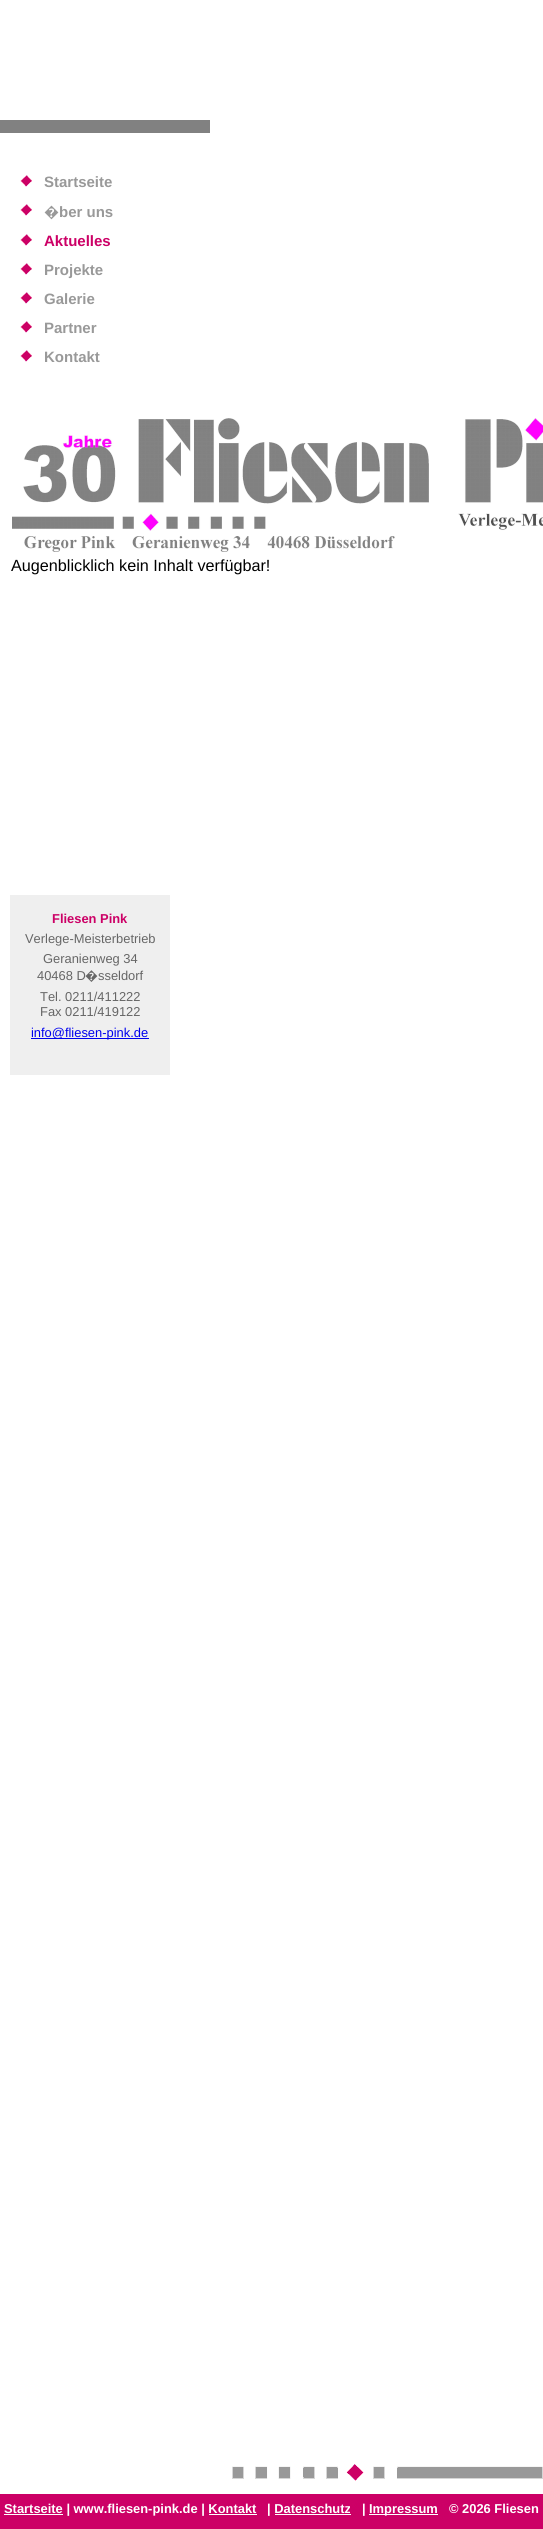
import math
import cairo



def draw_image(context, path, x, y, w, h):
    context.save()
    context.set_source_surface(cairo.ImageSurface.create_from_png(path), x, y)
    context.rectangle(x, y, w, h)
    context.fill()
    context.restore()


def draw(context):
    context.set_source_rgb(1, 1, 1)
    context.paint()
    context.set_source_rgb(129 / 255, 129 / 255, 129 / 255)
    context.rectangle(0, 120, 210, 13)
    context.fill()
    draw_image(context, "images/1.png", 20, 175, 12, 12)
    draw_image(context, "images/1.png", 20, 204, 12, 12)
    draw_image(context, "images/1.png", 20, 234, 12, 12)
    draw_image(context, "images/1.png", 20, 263, 12, 12)
    draw_image(context, "images/1.png", 20, 292, 12, 12)
    draw_image(context, "images/1.png", 20, 321, 12, 12)
    draw_image(context, "images/1.png", 20, 350, 12, 12)
    draw_image(context, "images/2.png", 12, 418, 531, 134)
    context.set_source_rgb(239 / 255, 239 / 255, 239 / 255)
    context.rectangle(10, 895, 160, 180)
    context.fill()
    context.set_source_rgb(0, 0, 238 / 255)
    context.rectangle(31, 1038, 118, 1)
    context.fill()
    context.set_source_rgb(204 / 255, 0, 102 / 255)
    context.rectangle(0, 2494, 543, 35)
    context.fill()
    draw_image(context, "images/3.png", 232, 2464, 311, 17)
    context.set_source_rgb(1, 1, 1)
    context.rectangle(4, 2514, 59, 1)
    context.fill()
    context.rectangle(369, 2514, 69, 1)
    context.fill()
    context.rectangle(209, 2514, 48, 1)
    context.fill()
    context.rectangle(275, 2514, 76, 1)
    context.fill()
    context.select_font_face("Liberation Sans", cairo.FontSlant.NORMAL, cairo.FontWeight.BOLD)
    context.set_font_size(15)
    context.set_source_rgb(153 / 255, 153 / 255, 153 / 255)
    context.move_to(44, 187)
    context.show_text("Startseite")
    context.select_font_face("Noto Sans", cairo.FontSlant.NORMAL, cairo.FontWeight.BOLD)
    context.move_to(44, 217)
    context.show_text("�")
    context.select_font_face("Liberation Sans", cairo.FontSlant.NORMAL, cairo.FontWeight.BOLD)
    context.move_to(59, 217)
    context.show_text("ber uns")
    context.set_source_rgb(204 / 255, 0, 102 / 255)
    context.move_to(44, 246)
    context.show_text("Aktuelles")
    context.set_source_rgb(153 / 255, 153 / 255, 153 / 255)
    context.move_to(44, 275)
    context.show_text("Projekte")
    context.move_to(44, 304)
    context.show_text("Galerie")
    context.move_to(44, 333)
    context.show_text("Partner")
    context.move_to(44, 362)
    context.show_text("Kontakt")
    context.select_font_face("Liberation Sans")
    context.set_font_size(16.2)
    context.set_source_rgb(0, 0, 0)
    context.move_to(11, 571)
    context.show_text("Augenblicklich kein Inhalt verfügbar!")
    context.select_font_face("Liberation Sans", cairo.FontSlant.NORMAL, cairo.FontWeight.BOLD)
    context.set_font_size(12.9)
    context.set_source_rgb(204 / 255, 0, 102 / 255)
    context.move_to(52, 923)
    context.show_text("Fliesen Pink")
    context.select_font_face("Liberation Sans")
    context.set_source_rgb(102 / 255, 102 / 255, 102 / 255)
    context.move_to(25, 943)
    context.show_text("Verlege-Meisterbetrieb")
    context.move_to(43, 963)
    context.show_text("Geranienweg 34")
    context.move_to(37, 980)
    context.show_text("40468 D")
    context.select_font_face("Noto Sans")
    context.move_to(85, 980)
    context.show_text("�")
    context.select_font_face("Liberation Sans")
    context.move_to(98, 980)
    context.show_text("sseldorf")
    context.move_to(40, 1001)
    context.show_text("Tel. 0211/411222")
    context.move_to(40, 1016)
    context.show_text("Fax 0211/419122")
    context.set_source_rgb(0, 0, 238 / 255)
    context.move_to(31, 1037)
    context.show_text("info@fliesen-pink.de")
    context.select_font_face("Liberation Sans", cairo.FontSlant.NORMAL, cairo.FontWeight.BOLD)
    context.set_source_rgb(1, 1, 1)
    context.move_to(4, 2513)
    context.show_text("Startseite | www.fliesen-pink.de | Kontakt")
    context.move_to(267, 2513)
    context.show_text("| Datenschutz")
    context.move_to(362, 2513)
    context.show_text("|")
    context.move_to(369, 2513)
    context.show_text("Impressum")
    context.move_to(449, 2513)
    context.show_text("© 2026 Fliesen")


surface = cairo.ImageSurface(cairo.Format.RGB24, 543, 2529)
context = cairo.Context(surface)
options = cairo.FontOptions()
options.set_hint_metrics(cairo.HintMetrics.OFF)
options.set_hint_style(cairo.HintStyle.NONE)
context.set_font_options(options)
context.set_miter_limit(4)
draw(context)
surface.write_to_png("out.png")
